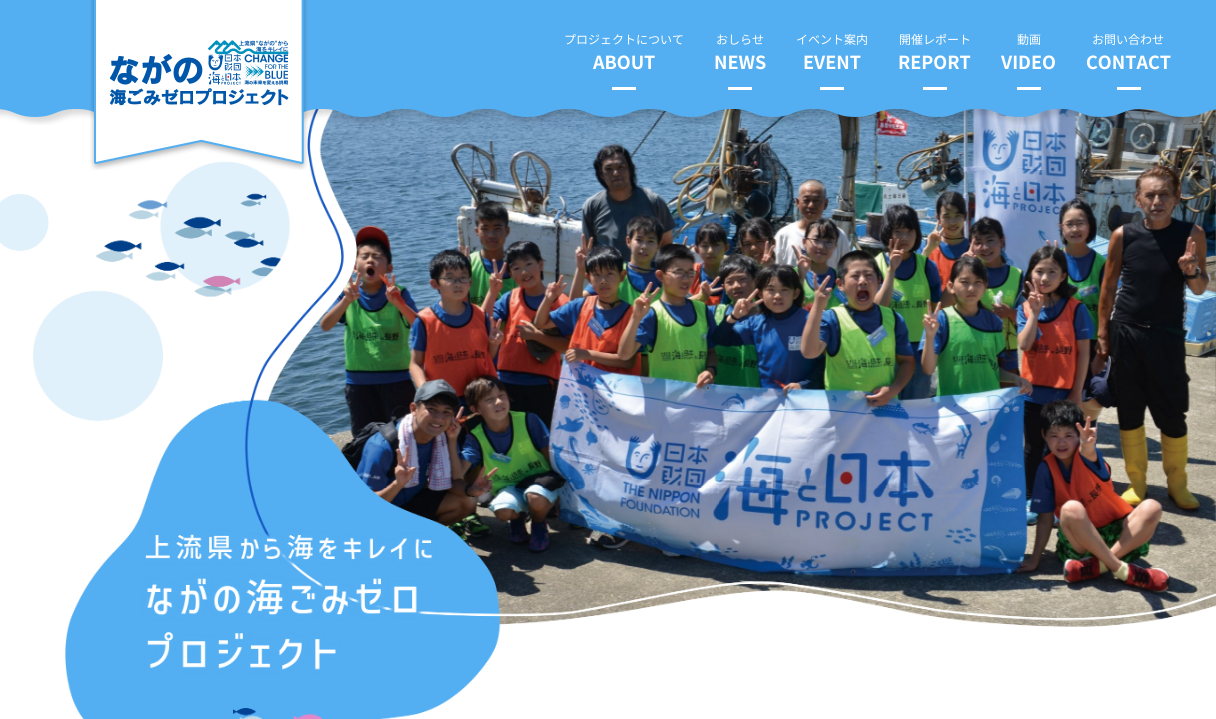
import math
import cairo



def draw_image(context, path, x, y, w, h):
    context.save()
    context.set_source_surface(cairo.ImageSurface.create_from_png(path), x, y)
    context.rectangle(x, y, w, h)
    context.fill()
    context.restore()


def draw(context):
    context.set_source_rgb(1, 1, 1)
    context.paint()
    draw_image(context, "images/5.png", 1215, 109, 1, 498)
    draw_image(context, "images/4.png", 268, 109, 948, 518)
    draw_image(context, "images/3.png", 0, 109, 1216, 610)
    draw_image(context, "images/1.png", 0, 0, 1216, 125)
    draw_image(context, "images/2.png", 90, 0, 218, 170)
    context.set_source_rgb(1, 1, 1)
    context.rectangle(612, 87, 24, 3)
    context.fill()
    context.rectangle(728, 87, 24, 3)
    context.fill()
    context.rectangle(820, 87, 24, 3)
    context.fill()
    context.rectangle(923, 87, 24, 3)
    context.fill()
    context.rectangle(1017, 87, 24, 3)
    context.fill()
    context.rectangle(1117, 87, 24, 3)
    context.fill()
    draw_image(context, "images/6.png", 233, 708, 90, 11)
    context.select_font_face("Noto Sans JP")
    context.set_font_size(12)
    context.move_to(564, 44)
    context.show_text("プロジェクトについて")
    context.select_font_face("Noto Sans JP", cairo.FontSlant.NORMAL, cairo.FontWeight.BOLD)
    context.set_font_size(18)
    context.move_to(593, 69)
    context.show_text("ABOUT")
    context.select_font_face("Noto Sans JP")
    context.set_font_size(12)
    context.move_to(716, 44)
    context.show_text("おしらせ")
    context.select_font_face("Noto Sans JP", cairo.FontSlant.NORMAL, cairo.FontWeight.BOLD)
    context.set_font_size(18)
    context.move_to(714, 69)
    context.show_text("NEWS")
    context.select_font_face("Noto Sans JP")
    context.set_font_size(12)
    context.move_to(796, 44)
    context.show_text("イベント案内")
    context.select_font_face("Noto Sans JP", cairo.FontSlant.NORMAL, cairo.FontWeight.BOLD)
    context.set_font_size(18)
    context.move_to(803, 69)
    context.show_text("EVENT")
    context.select_font_face("Noto Sans JP")
    context.set_font_size(12)
    context.move_to(899, 44)
    context.show_text("開催レポート")
    context.select_font_face("Noto Sans JP", cairo.FontSlant.NORMAL, cairo.FontWeight.BOLD)
    context.set_font_size(18)
    context.move_to(898, 69)
    context.show_text("REPORT")
    context.select_font_face("Noto Sans JP")
    context.set_font_size(12)
    context.move_to(1017, 44)
    context.show_text("動画")
    context.select_font_face("Noto Sans JP", cairo.FontSlant.NORMAL, cairo.FontWeight.BOLD)
    context.set_font_size(18)
    context.move_to(1001, 69)
    context.show_text("VIDEO")
    context.select_font_face("Noto Sans JP")
    context.set_font_size(12)
    context.move_to(1092, 44)
    context.show_text("お問い合わせ")
    context.select_font_face("Noto Sans JP", cairo.FontSlant.NORMAL, cairo.FontWeight.BOLD)
    context.set_font_size(18)
    context.move_to(1086, 69)
    context.show_text("CONTACT")


surface = cairo.ImageSurface(cairo.Format.RGB24, 1216, 719)
context = cairo.Context(surface)
options = cairo.FontOptions()
options.set_hint_metrics(cairo.HintMetrics.OFF)
options.set_hint_style(cairo.HintStyle.NONE)
context.set_font_options(options)
context.set_miter_limit(4)
draw(context)
surface.write_to_png("out.png")
